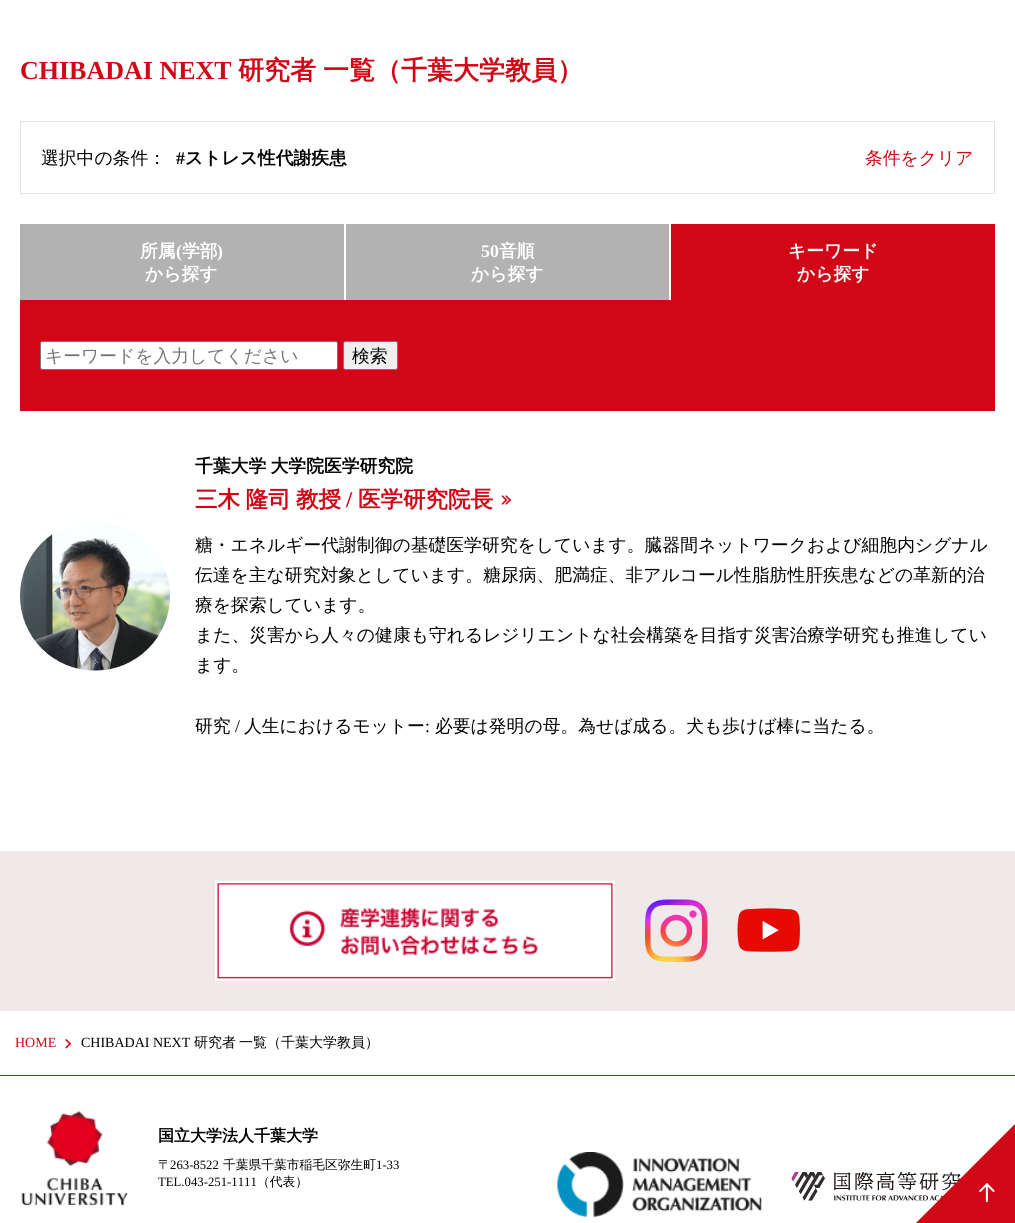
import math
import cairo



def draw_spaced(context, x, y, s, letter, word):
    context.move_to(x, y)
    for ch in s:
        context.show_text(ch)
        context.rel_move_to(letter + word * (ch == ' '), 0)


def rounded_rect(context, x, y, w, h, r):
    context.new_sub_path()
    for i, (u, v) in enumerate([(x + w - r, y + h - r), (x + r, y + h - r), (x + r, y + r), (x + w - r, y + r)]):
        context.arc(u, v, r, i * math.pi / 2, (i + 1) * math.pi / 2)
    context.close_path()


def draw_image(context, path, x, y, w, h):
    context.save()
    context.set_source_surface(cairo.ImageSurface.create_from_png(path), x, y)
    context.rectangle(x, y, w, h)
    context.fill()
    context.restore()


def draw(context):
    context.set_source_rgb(1, 1, 1)
    context.paint()
    context.rectangle(20.5, 121.5, 974, 72)
    context.set_source_rgb(229 / 255, 229 / 255, 229 / 255)
    context.set_line_width(1)
    context.stroke()
    context.set_source_rgb(178 / 255, 178 / 255, 178 / 255)
    context.rectangle(20, 224, 324, 76)
    context.fill()
    context.rectangle(346, 224, 323, 76)
    context.fill()
    context.set_source_rgb(209 / 255, 6 / 255, 22 / 255)
    context.rectangle(671, 224, 324, 76)
    context.fill()
    context.rectangle(20, 300, 975, 111)
    context.fill()
    context.set_source_rgb(1, 1, 1)
    rounded_rect(context, 40.5, 341.5, 297, 28, 2)
    context.fill_preserve()
    context.set_source_rgb(118 / 255, 118 / 255, 118 / 255)
    context.stroke()
    context.set_source_rgb(239 / 255, 239 / 255, 239 / 255)
    rounded_rect(context, 343.5, 341.5, 54, 28, 2)
    context.fill_preserve()
    context.set_source_rgb(118 / 255, 118 / 255, 118 / 255)
    context.stroke()
    draw_image(context, "images/1.png", 501, 495, 10, 10)
    draw_image(context, "images/2.png", 20, 521, 150, 150)
    context.set_source_rgb(240 / 255, 233 / 255, 233 / 255)
    context.rectangle(0, 851, 1015, 160)
    context.fill()
    draw_image(context, "images/3.png", 215, 880, 400, 101)
    draw_image(context, "images/4.png", 645, 899, 63, 63)
    draw_image(context, "images/5.png", 737, 908, 63, 44)
    draw_image(context, "images/6.png", 65, 1039, 6, 10)
    context.set_source_rgb(209 / 255, 6 / 255, 22 / 255)
    context.rectangle(0, 1075, 1015, 1)
    context.fill()
    draw_image(context, "images/7.png", 21, 1111, 108, 95)
    draw_image(context, "images/8.png", 557, 1152, 205, 65)
    draw_image(context, "images/9.png", 791, 1172, 170, 29)
    context.new_path()
    context.move_to(1015, 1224)
    context.line_to(915, 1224)
    context.line_to(1015, 1124)
    context.close_path()
    context.fill()
    draw_image(context, "images/10.png", 979, 1183, 16, 20)
    context.select_font_face("Liberation Serif", cairo.FontSlant.NORMAL, cairo.FontWeight.BOLD)
    context.set_font_size(26)
    context.move_to(20, 79)
    context.show_text("CHIBADAI NEXT")
    context.select_font_face("WenQuanYi Zen Hei", cairo.FontSlant.NORMAL, cairo.FontWeight.BOLD)
    context.move_to(238, 79)
    context.show_text("研究者")
    context.move_to(323, 79)
    context.show_text("一覧（千葉大学教員）")
    context.select_font_face("WenQuanYi Zen Hei Medium")
    context.set_font_size(17.8)
    context.set_source_rgb(0, 0, 0)
    context.move_to(41, 164)
    context.show_text("選択中の条件：")
    context.select_font_face("Liberation Serif", cairo.FontSlant.NORMAL, cairo.FontWeight.BOLD)
    context.move_to(176, 164)
    context.show_text("#")
    context.select_font_face("WenQuanYi Zen Hei", cairo.FontSlant.NORMAL, cairo.FontWeight.BOLD)
    context.move_to(185, 164)
    context.show_text("ストレス性代謝疾患")
    context.select_font_face("WenQuanYi Zen Hei Medium")
    context.set_source_rgb(209 / 255, 6 / 255, 22 / 255)
    context.move_to(865, 164)
    context.show_text("条件をクリア")
    context.select_font_face("WenQuanYi Zen Hei", cairo.FontSlant.NORMAL, cairo.FontWeight.BOLD)
    context.set_source_rgb(1, 1, 1)
    context.move_to(140, 257)
    context.show_text("所属")
    context.select_font_face("Liberation Serif", cairo.FontSlant.NORMAL, cairo.FontWeight.BOLD)
    context.move_to(176, 257)
    context.show_text("(")
    context.select_font_face("WenQuanYi Zen Hei", cairo.FontSlant.NORMAL, cairo.FontWeight.BOLD)
    context.move_to(182, 257)
    context.show_text("学部")
    context.select_font_face("Liberation Serif", cairo.FontSlant.NORMAL, cairo.FontWeight.BOLD)
    context.move_to(217, 257)
    context.show_text(")")
    context.select_font_face("WenQuanYi Zen Hei", cairo.FontSlant.NORMAL, cairo.FontWeight.BOLD)
    context.move_to(145, 280)
    context.show_text("から探す")
    context.select_font_face("Liberation Serif", cairo.FontSlant.NORMAL, cairo.FontWeight.BOLD)
    context.move_to(481, 257)
    context.show_text("50")
    context.select_font_face("WenQuanYi Zen Hei", cairo.FontSlant.NORMAL, cairo.FontWeight.BOLD)
    context.move_to(499, 257)
    context.show_text("音順")
    context.move_to(471, 280)
    context.show_text("から探す")
    context.move_to(788, 257)
    context.show_text("キーワード")
    context.move_to(797, 280)
    context.show_text("から探す")
    context.select_font_face("WenQuanYi Zen Hei Medium")
    context.set_source_rgb(117 / 255, 117 / 255, 117 / 255)
    context.move_to(45, 362)
    context.show_text("キーワードを入力してください")
    context.set_source_rgb(0, 0, 0)
    context.move_to(352, 362)
    context.show_text("検索")
    context.select_font_face("WenQuanYi Zen Hei", cairo.FontSlant.NORMAL, cairo.FontWeight.BOLD)
    draw_spaced(context, 195, 472, "千葉大学 大学院医学研究院", 0, -1)
    context.set_font_size(22.5)
    context.set_source_rgb(209 / 255, 6 / 255, 22 / 255)
    draw_spaced(context, 195, 507, "三木 隆司", 0, -1)
    context.move_to(296, 507)
    context.show_text("教授")
    context.select_font_face("Liberation Serif", cairo.FontSlant.NORMAL, cairo.FontWeight.BOLD)
    context.move_to(346, 507)
    context.show_text("/")
    context.select_font_face("WenQuanYi Zen Hei", cairo.FontSlant.NORMAL, cairo.FontWeight.BOLD)
    context.move_to(358, 507)
    context.show_text("医学研究院長")
    context.select_font_face("WenQuanYi Zen Hei Medium")
    context.set_font_size(17.8)
    context.set_source_rgb(0, 0, 0)
    context.move_to(195, 551)
    context.show_text("糖・エネルギー代謝制御の基礎医学研究をしています。臓器間ネットワークおよび細胞内シグナル")
    context.move_to(195, 581)
    context.show_text("伝達を主な研究対象としています。糖尿病、肥満症、非アルコール性脂肪性肝疾患などの革新的治")
    context.move_to(195, 611)
    context.show_text("療を探索しています。")
    context.move_to(195, 641)
    context.show_text("また、災害から人々の健康も守れるレジリエントな社会構築を目指す災害治療学研究も推進してい")
    context.move_to(195, 671)
    context.show_text("ます。")
    context.move_to(195, 732)
    context.show_text("研究")
    context.select_font_face("Liberation Serif")
    context.move_to(235, 732)
    context.show_text("/")
    context.select_font_face("WenQuanYi Zen Hei Medium")
    context.move_to(244, 732)
    context.show_text("人生におけるモットー")
    context.select_font_face("Liberation Serif")
    context.move_to(425, 732)
    context.show_text(":")
    context.select_font_face("WenQuanYi Zen Hei Medium")
    context.move_to(435, 732)
    context.show_text("必要は発明の母。為せば成る。犬も歩けば棒に当たる。")
    context.select_font_face("Liberation Serif")
    context.set_font_size(14)
    context.set_source_rgb(209 / 255, 6 / 255, 22 / 255)
    context.move_to(15, 1047)
    context.show_text("HOME")
    context.set_source_rgb(0, 0, 0)
    context.move_to(81, 1047)
    context.show_text("CHIBADAI NEXT")
    context.select_font_face("WenQuanYi Zen Hei Medium")
    context.move_to(194, 1047)
    context.show_text("研究者")
    context.move_to(239, 1047)
    context.show_text("一覧（千葉大学教員）")
    context.select_font_face("WenQuanYi Zen Hei", cairo.FontSlant.NORMAL, cairo.FontWeight.BOLD)
    context.set_font_size(16)
    context.move_to(158, 1141)
    context.show_text("国立大学法人千葉大学")
    context.select_font_face("WenQuanYi Zen Hei Medium")
    context.set_font_size(12.75)
    context.move_to(158, 1169)
    context.show_text("〒")
    context.select_font_face("Liberation Serif")
    context.move_to(170, 1169)
    context.show_text("263-8522")
    context.select_font_face("WenQuanYi Zen Hei Medium")
    context.move_to(223, 1169)
    context.show_text("千葉県千葉市稲毛区弥生町")
    context.select_font_face("Liberation Serif")
    context.move_to(376, 1169)
    context.show_text("1-33")
    context.move_to(158, 1186)
    context.show_text("TEL.043-251-1111")
    context.select_font_face("WenQuanYi Zen Hei Medium")
    context.move_to(257, 1186)
    context.show_text("（代表）")


surface = cairo.ImageSurface(cairo.Format.RGB24, 1015, 1223)
context = cairo.Context(surface)
options = cairo.FontOptions()
options.set_hint_metrics(cairo.HintMetrics.OFF)
options.set_hint_style(cairo.HintStyle.NONE)
context.set_font_options(options)
context.set_miter_limit(4)
draw(context)
surface.write_to_png("out.png")
